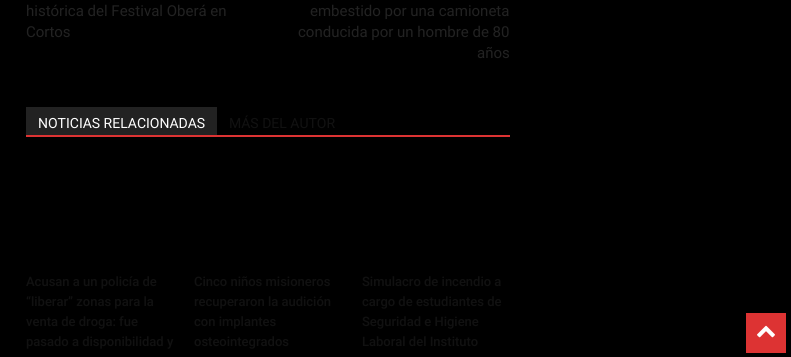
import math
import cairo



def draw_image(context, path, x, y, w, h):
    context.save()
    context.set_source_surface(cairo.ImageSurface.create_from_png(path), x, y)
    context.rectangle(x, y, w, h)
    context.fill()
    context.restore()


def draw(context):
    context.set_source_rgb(0, 0, 0)
    context.paint()
    context.set_source_rgb(221 / 255, 51 / 255, 51 / 255)
    context.rectangle(26, 135, 484, 2)
    context.fill()
    context.set_source_rgb(34 / 255, 34 / 255, 34 / 255)
    context.rectangle(26, 107, 191, 28)
    context.fill()
    context.set_source_rgb(221 / 255, 51 / 255, 51 / 255)
    context.rectangle(746, 313, 40, 40)
    context.fill()
    draw_image(context, "images/1.png", 757, 325, 18, 13)
    context.select_font_face("Roboto")
    context.set_font_size(15)
    context.set_source_rgb(34 / 255, 34 / 255, 34 / 255)
    context.move_to(26, 16)
    context.show_text("histórica del Festival Oberá en")
    context.move_to(26, 37)
    context.show_text("Cortos")
    context.move_to(310, 16)
    context.show_text("embestido por una camioneta")
    context.move_to(298, 37)
    context.show_text("conducida por un hombre de 80")
    context.move_to(477, 58)
    context.show_text("años")
    context.set_font_size(14)
    context.set_source_rgb(1, 1, 1)
    context.move_to(38, 128)
    context.show_text("NOTICIAS RELACIONADAS")
    context.set_source_rgb(17 / 255, 17 / 255, 17 / 255)
    context.move_to(229, 128)
    context.show_text("MÁS DEL AUTOR")
    context.select_font_face("Roboto Medium")
    context.set_font_size(13)
    context.move_to(26, 286)
    context.show_text("Acusan a un policía de")
    context.move_to(26, 306)
    context.show_text("“liberar” zonas para la")
    context.move_to(26, 326)
    context.show_text("venta de droga: fue")
    context.move_to(26, 346)
    context.show_text("pasado a disponibilidad y")
    context.move_to(194, 286)
    context.show_text("Cinco niños misioneros")
    context.move_to(194, 306)
    context.show_text("recuperaron la audición")
    context.move_to(194, 326)
    context.show_text("con implantes")
    context.move_to(194, 346)
    context.show_text("osteointegrados")
    context.move_to(362, 286)
    context.show_text("Simulacro de incendio a")
    context.move_to(362, 306)
    context.show_text("cargo de estudiantes de")
    context.move_to(362, 326)
    context.show_text("Seguridad e Higiene")
    context.move_to(362, 346)
    context.show_text("Laboral del Instituto")


surface = cairo.ImageSurface(cairo.Format.RGB24, 791, 357)
context = cairo.Context(surface)
options = cairo.FontOptions()
options.set_hint_metrics(cairo.HintMetrics.OFF)
options.set_hint_style(cairo.HintStyle.NONE)
context.set_font_options(options)
context.set_miter_limit(4)
draw(context)
surface.write_to_png("out.png")
